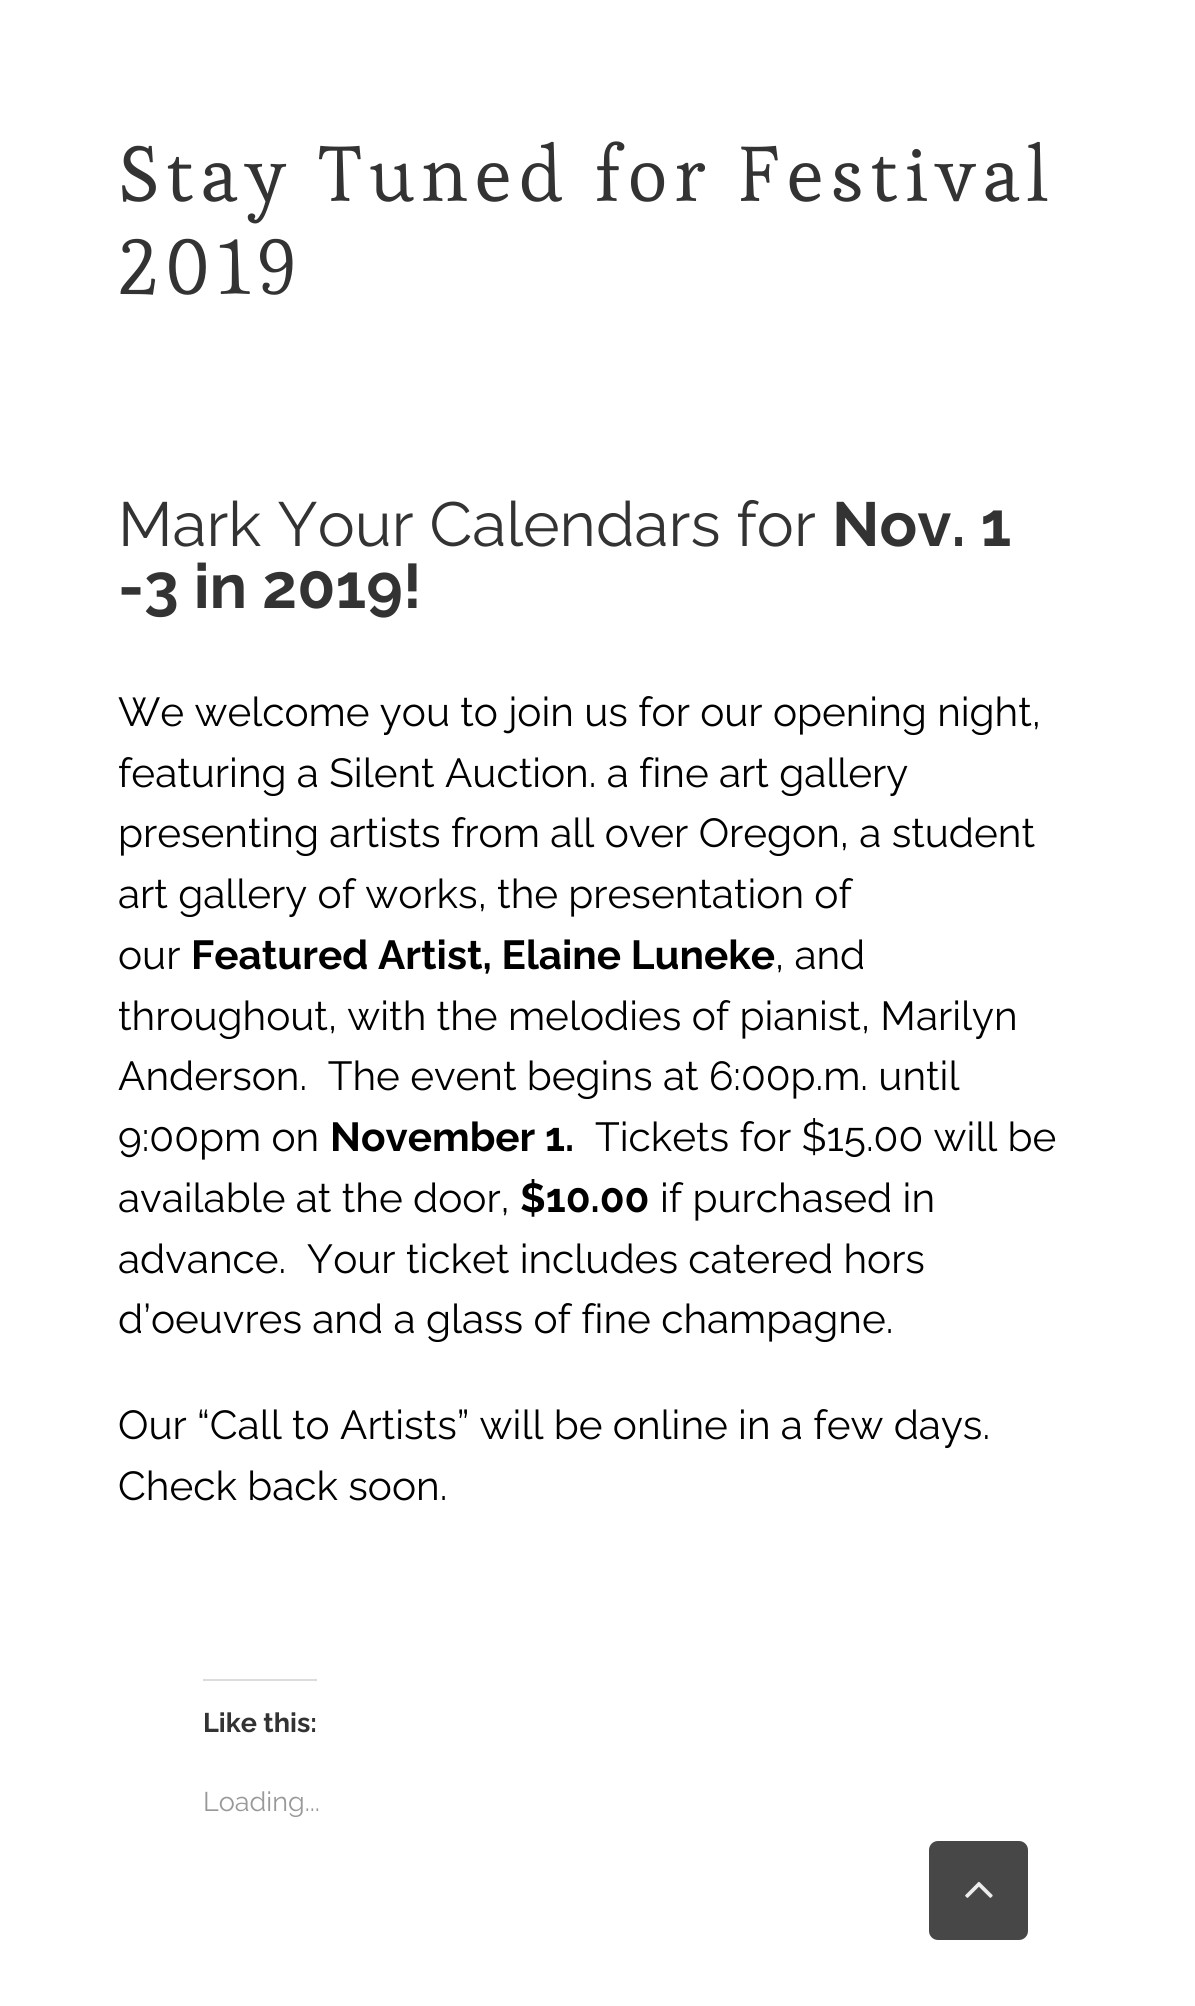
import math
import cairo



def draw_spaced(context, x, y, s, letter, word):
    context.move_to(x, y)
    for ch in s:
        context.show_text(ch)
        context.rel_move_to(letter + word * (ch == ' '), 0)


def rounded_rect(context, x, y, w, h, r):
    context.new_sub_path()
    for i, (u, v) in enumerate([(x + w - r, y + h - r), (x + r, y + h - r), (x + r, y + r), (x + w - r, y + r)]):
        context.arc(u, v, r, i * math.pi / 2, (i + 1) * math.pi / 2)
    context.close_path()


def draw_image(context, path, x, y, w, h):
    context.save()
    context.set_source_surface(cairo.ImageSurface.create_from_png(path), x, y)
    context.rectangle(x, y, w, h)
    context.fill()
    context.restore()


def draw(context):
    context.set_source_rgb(1, 1, 1)
    context.paint()
    context.set_source_rgb(220 / 255, 220 / 255, 222 / 255)
    context.rectangle(203, 1679, 114, 2)
    context.fill()
    context.set_source_rgb(71 / 255, 71 / 255, 71 / 255)
    rounded_rect(context, 929, 1841, 99, 99, 9)
    context.fill()
    draw_image(context, "images/1.png", 965, 1881, 28, 17)
    context.select_font_face("Esteban")
    context.set_font_size(77.4)
    context.set_source_rgb(51 / 255, 51 / 255, 51 / 255)
    draw_spaced(context, 118, 201, "Stay Tuned for Festival", 6.75, 0)
    draw_spaced(context, 118, 294, "2019", 6.75, 0)
    context.select_font_face("Raleway")
    context.set_font_size(62.25)
    context.move_to(118, 546)
    context.show_text("Mark Your Calendars for")
    context.select_font_face("Raleway", cairo.FontSlant.NORMAL, cairo.FontWeight.BOLD)
    context.move_to(832, 546)
    context.show_text("Nov. 1")
    context.move_to(118, 608)
    context.show_text("-3 in 2019!")
    context.select_font_face("Raleway")
    context.set_font_size(40.5)
    context.set_source_rgb(0, 0, 0)
    context.move_to(118, 726)
    context.show_text("We welcome you to join us for our opening night,")
    context.move_to(118, 787)
    context.show_text("featuring a Silent Auction. a fine art gallery")
    context.move_to(118, 847)
    context.show_text("presenting artists from all over Oregon, a student")
    context.move_to(118, 908)
    context.show_text("art gallery of works, the presentation of")
    context.move_to(118, 969)
    context.show_text("our")
    context.select_font_face("Raleway", cairo.FontSlant.NORMAL, cairo.FontWeight.BOLD)
    context.move_to(191, 969)
    context.show_text("Featured Artist, Elaine Luneke")
    context.select_font_face("Raleway")
    context.move_to(775, 969)
    context.show_text(", and")
    context.move_to(118, 1030)
    context.show_text("throughout, with the melodies of pianist, Marilyn")
    context.move_to(118, 1090)
    context.show_text("Anderson.  The event begins at 6:00p.m. until")
    context.move_to(118, 1151)
    context.show_text("9:00pm on")
    context.select_font_face("Raleway", cairo.FontSlant.NORMAL, cairo.FontWeight.BOLD)
    context.move_to(330, 1151)
    context.show_text("November 1.")
    context.select_font_face("Raleway")
    context.move_to(595, 1151)
    context.show_text("Tickets for $15.00 will be")
    context.move_to(118, 1212)
    context.show_text("available at the door,")
    context.select_font_face("Raleway", cairo.FontSlant.NORMAL, cairo.FontWeight.BOLD)
    context.move_to(520, 1212)
    context.show_text("$10.00")
    context.select_font_face("Raleway")
    context.move_to(660, 1212)
    context.show_text("if purchased in")
    context.move_to(118, 1273)
    context.show_text("advance.  Your ticket includes catered hors")
    context.move_to(118, 1333)
    context.show_text("d’oeuvres and a glass of fine champagne.")
    context.move_to(118, 1439)
    context.show_text("Our “Call to Artists” will be online in a few days.")
    context.move_to(118, 1500)
    context.show_text("Check back soon.")
    context.select_font_face("Raleway", cairo.FontSlant.NORMAL, cairo.FontWeight.BOLD)
    context.set_font_size(27)
    context.set_source_rgb(51 / 255, 51 / 255, 51 / 255)
    context.move_to(203, 1732)
    context.show_text("Like this:")
    context.select_font_face("Raleway")
    context.set_source_rgb(153 / 255, 153 / 255, 153 / 255)
    context.move_to(203, 1811)
    context.show_text("Loading...")


surface = cairo.ImageSurface(cairo.Format.RGB24, 1195, 2006)
context = cairo.Context(surface)
options = cairo.FontOptions()
options.set_hint_metrics(cairo.HintMetrics.OFF)
options.set_hint_style(cairo.HintStyle.NONE)
context.set_font_options(options)
context.set_miter_limit(4)
draw(context)
surface.write_to_png("out.png")
